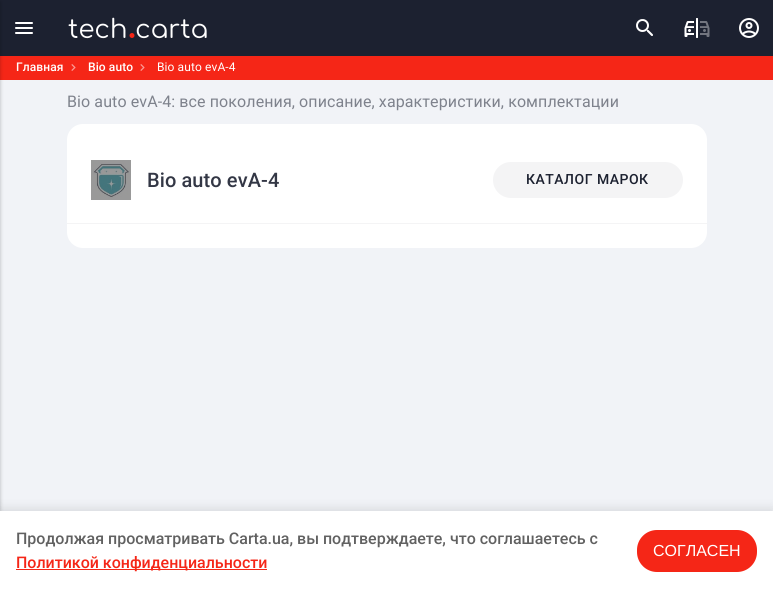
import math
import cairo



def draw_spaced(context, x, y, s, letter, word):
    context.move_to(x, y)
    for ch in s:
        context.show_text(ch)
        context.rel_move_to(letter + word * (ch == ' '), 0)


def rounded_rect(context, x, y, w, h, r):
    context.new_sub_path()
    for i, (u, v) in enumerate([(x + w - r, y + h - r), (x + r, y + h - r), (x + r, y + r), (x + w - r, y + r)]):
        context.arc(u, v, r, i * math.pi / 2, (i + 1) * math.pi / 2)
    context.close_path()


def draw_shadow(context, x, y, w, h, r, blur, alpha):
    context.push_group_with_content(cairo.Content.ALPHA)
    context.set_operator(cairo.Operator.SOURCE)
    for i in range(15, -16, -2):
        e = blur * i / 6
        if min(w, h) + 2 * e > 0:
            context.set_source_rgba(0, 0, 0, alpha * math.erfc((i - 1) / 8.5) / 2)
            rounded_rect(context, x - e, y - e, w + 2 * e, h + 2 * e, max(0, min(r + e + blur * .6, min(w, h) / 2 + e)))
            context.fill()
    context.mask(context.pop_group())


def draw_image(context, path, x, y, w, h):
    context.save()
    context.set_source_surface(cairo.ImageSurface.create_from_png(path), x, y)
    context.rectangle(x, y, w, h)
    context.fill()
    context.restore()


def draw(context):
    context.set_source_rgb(241 / 255, 243 / 255, 247 / 255)
    context.paint()
    context.set_source_rgb(28 / 255, 33 / 255, 48 / 255)
    context.rectangle(0, 0, 773, 56)
    context.fill()
    context.set_source_rgb(245 / 255, 38 / 255, 23 / 255)
    context.rectangle(0, 56, 773, 24)
    context.fill()
    context.set_source_rgb(0, 0, 0)
    draw_shadow(context, -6, 2, 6, 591, 0, 2, 0.25)
    context.set_source_rgb(1, 1, 1)
    rounded_rect(context, 15, 22, 18, 2, 1)
    context.fill()
    rounded_rect(context, 15, 27, 18, 2, 1)
    context.fill()
    rounded_rect(context, 15, 32, 18, 2, 1)
    context.fill()
    draw_image(context, "images/1.png", 68, 17, 139, 22)
    draw_image(context, "images/2.png", 636, 19, 17, 17)
    draw_image(context, "images/3.png", 684, 18, 26, 20)
    draw_image(context, "images/4.png", 739, 18, 20, 20)
    draw_image(context, "images/5.png", 71, 64, 5, 7)
    draw_image(context, "images/5.png", 140, 64, 5, 7)
    rounded_rect(context, 67, 124, 640, 124, 16)
    context.fill()
    draw_image(context, "images/6.png", 91, 160, 40, 40)
    context.set_source_rgb(244 / 255, 244 / 255, 245 / 255)
    rounded_rect(context, 493, 162, 190, 36, 18)
    context.fill()
    context.rectangle(67, 223, 640, 1)
    context.fill()
    context.set_source_rgb(0, 0, 0)
    draw_shadow(context, 0, 508, 773, 80, 0, 5, 0.1)
    context.set_source_rgb(1, 1, 1)
    context.rectangle(0, 511, 773, 80)
    context.fill()
    context.set_source_rgb(245 / 255, 38 / 255, 23 / 255)
    context.rectangle(16, 569, 251, 1)
    context.fill()
    rounded_rect(context, 637, 530, 120, 42, 20)
    context.fill()
    context.select_font_face("Roboto Medium")
    context.set_font_size(12)
    context.set_source_rgb(1, 1, 1)
    draw_spaced(context, 16, 71, "Главная", 0.1, 0)
    draw_spaced(context, 88, 71, "Bio auto", 0.1, 0)
    context.select_font_face("Roboto")
    draw_spaced(context, 157, 71, "Bio auto evA-4", 0.1, 0)
    context.set_font_size(16)
    context.set_source_rgb(126 / 255, 130 / 255, 140 / 255)
    draw_spaced(context, 67, 107, "Bio auto evA-4: все поколения, описание, характеристики, комплектации", 0.1, 0)
    context.select_font_face("Roboto Medium")
    context.set_font_size(20)
    context.set_source_rgb(51 / 255, 55 / 255, 69 / 255)
    draw_spaced(context, 147, 187, "Bio auto evA-4", 0.1, 0)
    context.set_font_size(14)
    context.set_source_rgb(28 / 255, 33 / 255, 48 / 255)
    draw_spaced(context, 526, 184, "КАТАЛОГ МАРОК", 0.5, 0)
    context.set_font_size(16)
    context.set_source_rgb(97 / 255, 97 / 255, 97 / 255)
    context.move_to(16, 544)
    context.show_text("Продолжая просматривать Carta.ua, вы подтверждаете, что соглашаетесь c")
    context.set_source_rgb(245 / 255, 38 / 255, 23 / 255)
    context.move_to(16, 568)
    context.show_text("Политикой конфиденциальности")
    context.select_font_face("Liberation Sans")
    context.set_source_rgb(1, 1, 1)
    context.move_to(653, 556)
    context.show_text("СОГЛАСЕН")


surface = cairo.ImageSurface(cairo.Format.RGB24, 773, 591)
context = cairo.Context(surface)
options = cairo.FontOptions()
options.set_hint_metrics(cairo.HintMetrics.OFF)
options.set_hint_style(cairo.HintStyle.NONE)
context.set_font_options(options)
context.set_miter_limit(4)
draw(context)
surface.write_to_png("out.png")
